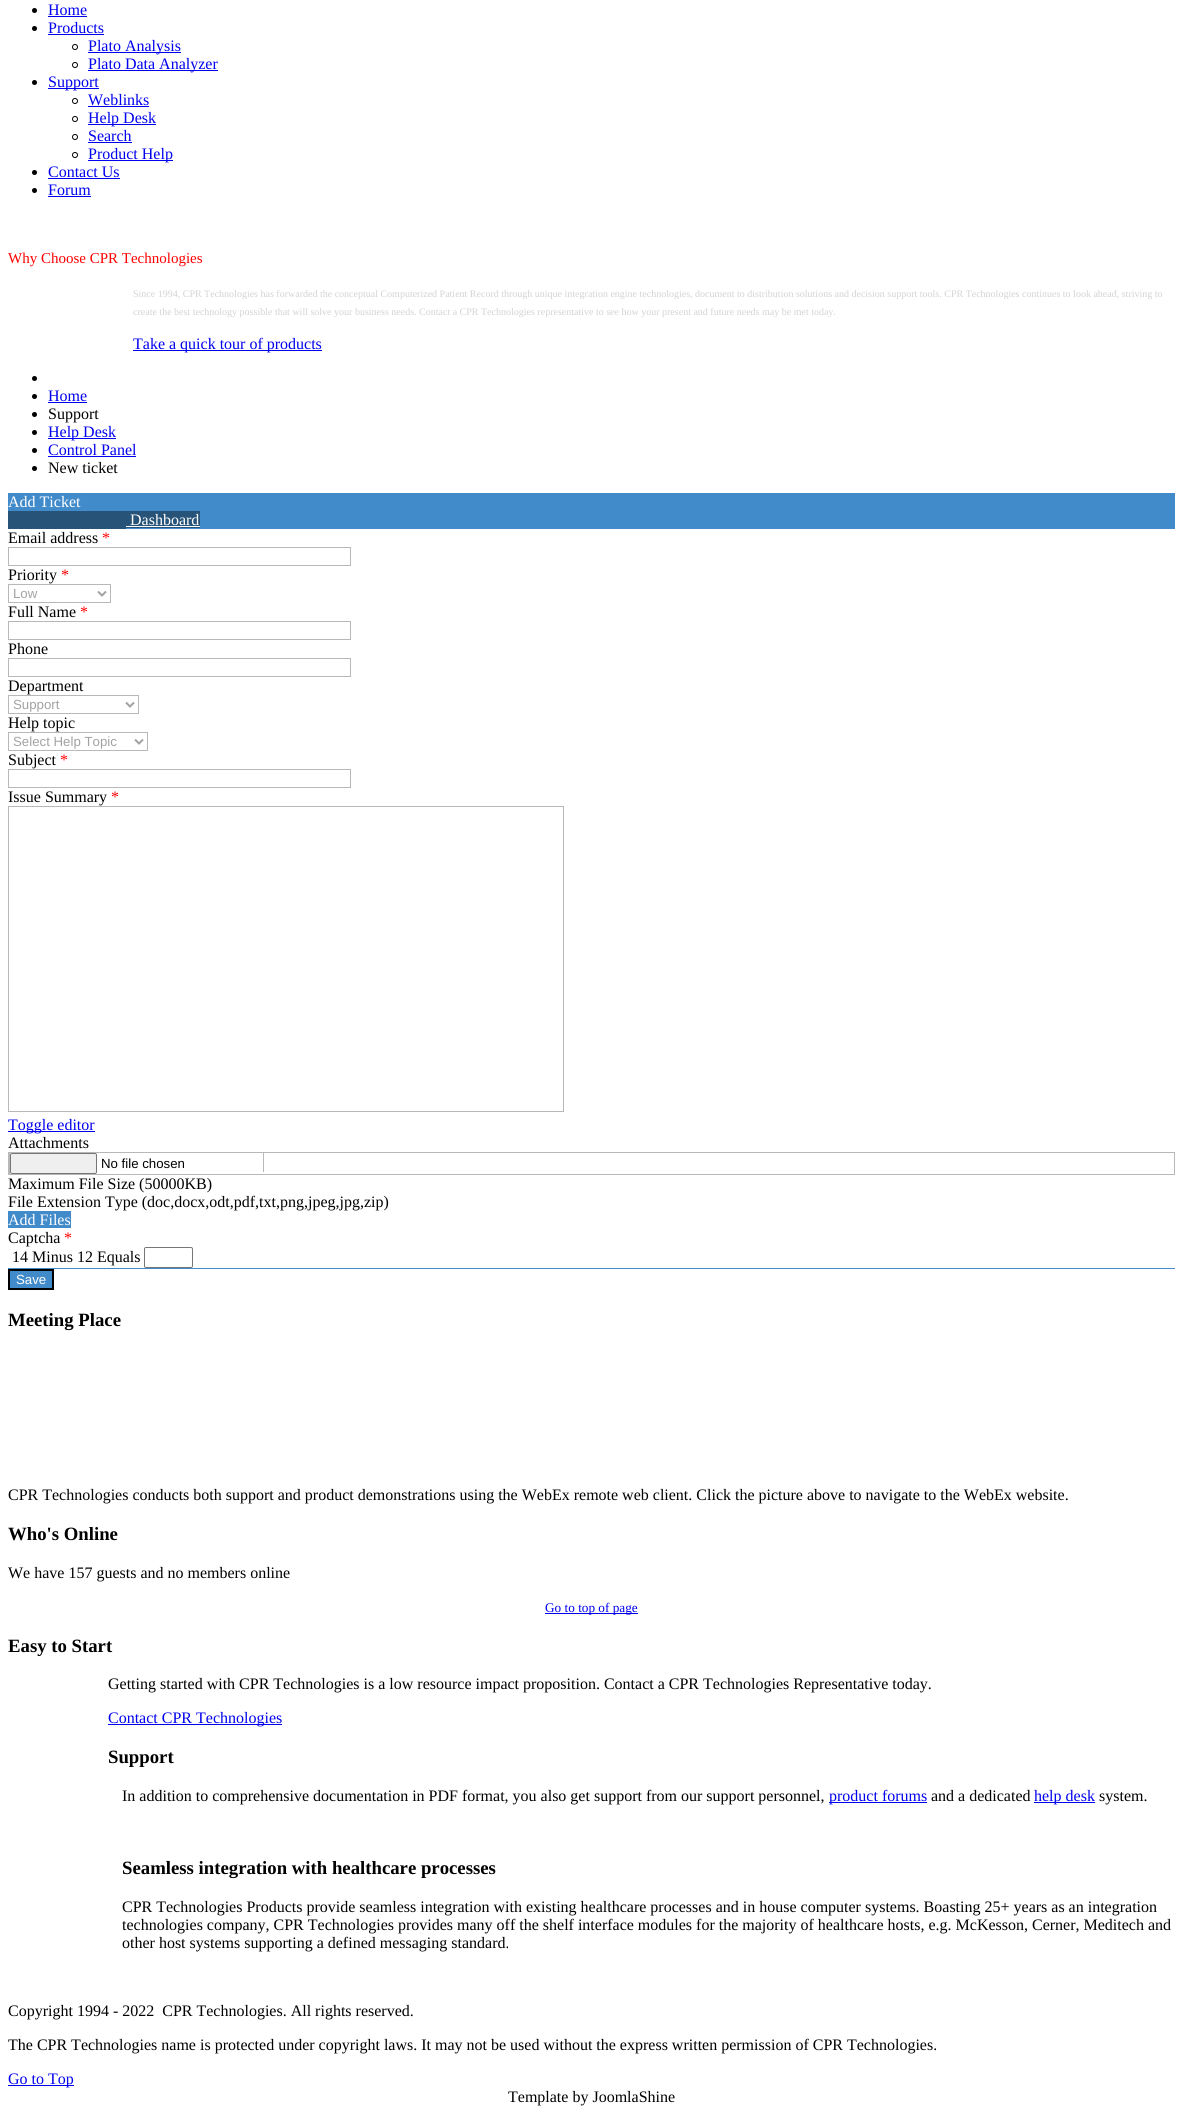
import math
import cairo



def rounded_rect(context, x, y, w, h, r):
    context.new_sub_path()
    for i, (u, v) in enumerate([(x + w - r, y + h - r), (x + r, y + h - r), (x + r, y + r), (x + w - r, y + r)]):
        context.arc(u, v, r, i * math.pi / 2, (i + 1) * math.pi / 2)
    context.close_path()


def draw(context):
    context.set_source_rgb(1, 1, 1)
    context.paint()
    context.set_source_rgb(0, 0, 0)
    context.arc(34.5, 10.5, 2.5, 0, 2 * math.pi)
    context.fill()
    context.set_source_rgb(0, 0, 238 / 255)
    context.rectangle(48, 16, 39, 1)
    context.fill()
    context.set_source_rgb(0, 0, 0)
    context.arc(34.5, 28.5, 2.5, 0, 2 * math.pi)
    context.fill()
    context.set_source_rgb(0, 0, 238 / 255)
    context.rectangle(48, 34, 56, 1)
    context.fill()
    context.arc(75, 47, 2.5, 0, 2 * math.pi)
    context.set_source_rgb(0, 0, 0)
    context.set_line_width(1)
    context.stroke()
    context.set_source_rgb(0, 0, 238 / 255)
    context.rectangle(88, 52, 93, 1)
    context.fill()
    context.arc(75, 65, 2.5, 0, 2 * math.pi)
    context.set_source_rgb(0, 0, 0)
    context.stroke()
    context.set_source_rgb(0, 0, 238 / 255)
    context.rectangle(88, 70, 130, 1)
    context.fill()
    context.set_source_rgb(0, 0, 0)
    context.arc(34.5, 82.5, 2.5, 0, 2 * math.pi)
    context.fill()
    context.set_source_rgb(0, 0, 238 / 255)
    context.rectangle(48, 88, 51, 1)
    context.fill()
    context.arc(75, 101, 2.5, 0, 2 * math.pi)
    context.set_source_rgb(0, 0, 0)
    context.stroke()
    context.set_source_rgb(0, 0, 238 / 255)
    context.rectangle(88, 106, 61, 1)
    context.fill()
    context.arc(75, 119, 2.5, 0, 2 * math.pi)
    context.set_source_rgb(0, 0, 0)
    context.stroke()
    context.set_source_rgb(0, 0, 238 / 255)
    context.rectangle(88, 124, 68, 1)
    context.fill()
    context.arc(75, 137, 2.5, 0, 2 * math.pi)
    context.set_source_rgb(0, 0, 0)
    context.stroke()
    context.set_source_rgb(0, 0, 238 / 255)
    context.rectangle(88, 142, 44, 1)
    context.fill()
    context.arc(75, 155, 2.5, 0, 2 * math.pi)
    context.set_source_rgb(0, 0, 0)
    context.stroke()
    context.set_source_rgb(0, 0, 238 / 255)
    context.rectangle(88, 160, 85, 1)
    context.fill()
    context.set_source_rgb(0, 0, 0)
    context.arc(34.5, 172.5, 2.5, 0, 2 * math.pi)
    context.fill()
    context.set_source_rgb(0, 0, 238 / 255)
    context.rectangle(48, 178, 72, 1)
    context.fill()
    context.set_source_rgb(0, 0, 0)
    context.arc(34.5, 190.5, 2.5, 0, 2 * math.pi)
    context.fill()
    context.set_source_rgb(0, 0, 238 / 255)
    context.rectangle(48, 196, 43, 1)
    context.fill()
    context.rectangle(133, 350, 189, 1)
    context.fill()
    context.set_source_rgb(0, 0, 0)
    context.arc(34.5, 378.5, 2.5, 0, 2 * math.pi)
    context.fill()
    context.arc(34.5, 396.5, 2.5, 0, 2 * math.pi)
    context.fill()
    context.set_source_rgb(0, 0, 238 / 255)
    context.rectangle(48, 402, 39, 1)
    context.fill()
    context.set_source_rgb(0, 0, 0)
    context.arc(34.5, 414.5, 2.5, 0, 2 * math.pi)
    context.fill()
    context.arc(34.5, 432.5, 2.5, 0, 2 * math.pi)
    context.fill()
    context.set_source_rgb(0, 0, 238 / 255)
    context.rectangle(48, 438, 68, 1)
    context.fill()
    context.set_source_rgb(0, 0, 0)
    context.arc(34.5, 450.5, 2.5, 0, 2 * math.pi)
    context.fill()
    context.set_source_rgb(0, 0, 238 / 255)
    context.rectangle(48, 456, 88, 1)
    context.fill()
    context.set_source_rgb(0, 0, 0)
    context.arc(34.5, 468.5, 2.5, 0, 2 * math.pi)
    context.fill()
    context.set_source_rgb(66 / 255, 139 / 255, 202 / 255)
    context.rectangle(8, 493, 1167, 36)
    context.fill()
    context.set_source_rgb(40 / 255, 83 / 255, 121 / 255)
    context.rectangle(8, 511, 118, 18)
    context.fill()
    context.rectangle(126, 511, 74, 17)
    context.fill()
    context.set_source_rgb(1, 1, 1)
    context.rectangle(126, 526, 74, 1)
    context.fill()
    context.rectangle(8.5, 547.5, 342, 18)
    context.set_source_rgb(184 / 255, 184 / 255, 184 / 255)
    context.stroke()
    context.rectangle(8.5, 584.5, 102, 18)
    context.stroke()
    context.new_path()
    context.move_to(98, 591.5)
    context.line_to(102, 595.5)
    context.line_to(106, 591.5)
    context.set_source_rgb(162 / 255, 162 / 255, 162 / 255)
    context.set_line_width(2)
    context.stroke()
    context.rectangle(8.5, 621.5, 342, 18)
    context.set_source_rgb(184 / 255, 184 / 255, 184 / 255)
    context.set_line_width(1)
    context.stroke()
    context.rectangle(8.5, 658.5, 342, 18)
    context.stroke()
    context.rectangle(8.5, 695.5, 130, 18)
    context.stroke()
    context.new_path()
    context.move_to(126, 702.5)
    context.line_to(130, 706.5)
    context.line_to(134, 702.5)
    context.set_source_rgb(162 / 255, 162 / 255, 162 / 255)
    context.set_line_width(2)
    context.stroke()
    context.rectangle(8.5, 732.5, 139, 18)
    context.set_source_rgb(184 / 255, 184 / 255, 184 / 255)
    context.set_line_width(1)
    context.stroke()
    context.new_path()
    context.move_to(135, 739.5)
    context.line_to(139, 743.5)
    context.line_to(143, 739.5)
    context.set_source_rgb(162 / 255, 162 / 255, 162 / 255)
    context.set_line_width(2)
    context.stroke()
    context.rectangle(8.5, 769.5, 342, 18)
    context.set_source_rgb(184 / 255, 184 / 255, 184 / 255)
    context.set_line_width(1)
    context.stroke()
    context.rectangle(8.5, 806.5, 555, 305)
    context.stroke()
    context.set_source_rgb(0, 0, 238 / 255)
    context.rectangle(8, 1131, 87, 1)
    context.fill()
    context.rectangle(8.5, 1152.5, 1166, 22)
    context.set_source_rgb(184 / 255, 184 / 255, 184 / 255)
    context.stroke()
    context.rectangle(9, 1152, 1, 23)
    context.fill()
    context.rectangle(263, 1153, 1, 19)
    context.fill()
    context.set_source_rgb(239 / 255, 239 / 255, 239 / 255)
    rounded_rect(context, 10.5, 1153.5, 86, 20, 1.5)
    context.fill_preserve()
    context.set_source_rgb(118 / 255, 118 / 255, 118 / 255)
    context.stroke()
    context.set_source_rgb(66 / 255, 139 / 255, 202 / 255)
    context.rectangle(8, 1211, 63, 17)
    context.fill()
    rounded_rect(context, 144.5, 1247.5, 48, 20, 1.5)
    context.set_source_rgb(118 / 255, 118 / 255, 118 / 255)
    context.stroke()
    context.set_source_rgb(66 / 255, 139 / 255, 202 / 255)
    context.rectangle(8, 1268, 1167, 1)
    context.fill()
    context.rectangle(9, 1270, 44, 19)
    context.fill_preserve()
    context.set_source_rgb(0, 0, 0)
    context.set_line_width(2)
    context.stroke()
    context.set_source_rgb(0, 0, 238 / 255)
    context.rectangle(545, 1613, 93, 1)
    context.fill()
    context.rectangle(108, 1724, 174, 1)
    context.fill()
    context.rectangle(829, 1802, 98, 1)
    context.fill()
    context.rectangle(1034, 1802, 61, 1)
    context.fill()
    context.rectangle(8, 2085, 66, 1)
    context.fill()
    context.select_font_face("Liberation Serif")
    context.set_font_size(16)
    context.move_to(48, 15)
    context.show_text("Home")
    context.move_to(48, 33)
    context.show_text("Products")
    context.move_to(88, 51)
    context.show_text("Plato Analysis")
    context.move_to(88, 69)
    context.show_text("Plato Data Analyzer")
    context.move_to(48, 87)
    context.show_text("Support")
    context.move_to(88, 105)
    context.show_text("Weblinks")
    context.move_to(88, 123)
    context.show_text("Help Desk")
    context.move_to(88, 141)
    context.show_text("Search")
    context.move_to(88, 159)
    context.show_text("Product Help")
    context.move_to(48, 177)
    context.show_text("Contact Us")
    context.move_to(48, 195)
    context.show_text("Forum")
    context.set_font_size(15)
    context.set_source_rgb(1, 0, 0)
    context.move_to(8, 263)
    context.show_text("Why Choose CPR Technologies")
    context.set_font_size(10)
    context.set_source_rgb(211 / 255, 211 / 255, 211 / 255)
    context.move_to(133, 297)
    context.show_text("Since 1994, CPR Technologies has forwarded the conceptual Computerized Patient Record through unique integration engine technologies, document to distribution solutions and decision support tools. CPR Technologies continues to look ahead, striving to")
    context.move_to(133, 315)
    context.show_text("create the best technology possible that will solve your business needs. Contact a CPR Technologies representative to see how your present and future needs may be met today.")
    context.set_font_size(16)
    context.set_source_rgb(0, 0, 238 / 255)
    context.move_to(133, 349)
    context.show_text("Take a quick tour of products")
    context.move_to(48, 401)
    context.show_text("Home")
    context.set_source_rgb(0, 0, 0)
    context.move_to(48, 419)
    context.show_text("Support")
    context.set_source_rgb(0, 0, 238 / 255)
    context.move_to(48, 437)
    context.show_text("Help Desk")
    context.move_to(48, 455)
    context.show_text("Control Panel")
    context.set_source_rgb(0, 0, 0)
    context.move_to(48, 473)
    context.show_text("New ticket")
    context.set_source_rgb(1, 1, 1)
    context.move_to(8, 507)
    context.show_text("Add Ticket")
    context.move_to(130, 525)
    context.show_text("Dashboard")
    context.set_source_rgb(0, 0, 0)
    context.move_to(8, 543)
    context.show_text("Email address")
    context.set_source_rgb(1, 0, 0)
    context.move_to(102, 543)
    context.show_text("*")
    context.set_source_rgb(0, 0, 0)
    context.move_to(8, 580)
    context.show_text("Priority")
    context.set_source_rgb(1, 0, 0)
    context.move_to(61, 580)
    context.show_text("*")
    context.select_font_face("Liberation Sans")
    context.set_font_size(13.25)
    context.set_source_rgb(162 / 255, 162 / 255, 162 / 255)
    context.move_to(13, 598)
    context.show_text("Low")
    context.select_font_face("Liberation Serif")
    context.set_font_size(16)
    context.set_source_rgb(0, 0, 0)
    context.move_to(8, 617)
    context.show_text("Full Name")
    context.set_source_rgb(1, 0, 0)
    context.move_to(80, 617)
    context.show_text("*")
    context.set_source_rgb(0, 0, 0)
    context.move_to(8, 654)
    context.show_text("Phone")
    context.move_to(8, 691)
    context.show_text("Department")
    context.select_font_face("Liberation Sans")
    context.set_font_size(13.25)
    context.set_source_rgb(162 / 255, 162 / 255, 162 / 255)
    context.move_to(13, 709)
    context.show_text("Support")
    context.select_font_face("Liberation Serif")
    context.set_font_size(16)
    context.set_source_rgb(0, 0, 0)
    context.move_to(8, 728)
    context.show_text("Help topic")
    context.select_font_face("Liberation Sans")
    context.set_font_size(13.25)
    context.set_source_rgb(162 / 255, 162 / 255, 162 / 255)
    context.move_to(13, 746)
    context.show_text("Select Help Topic")
    context.select_font_face("Liberation Serif")
    context.set_font_size(16)
    context.set_source_rgb(0, 0, 0)
    context.move_to(8, 765)
    context.show_text("Subject")
    context.set_source_rgb(1, 0, 0)
    context.move_to(60, 765)
    context.show_text("*")
    context.set_source_rgb(0, 0, 0)
    context.move_to(8, 802)
    context.show_text("Issue Summary")
    context.set_source_rgb(1, 0, 0)
    context.move_to(111, 802)
    context.show_text("*")
    context.set_source_rgb(0, 0, 238 / 255)
    context.move_to(8, 1130)
    context.show_text("Toggle editor")
    context.set_source_rgb(0, 0, 0)
    context.move_to(8, 1148)
    context.show_text("Attachments")
    context.select_font_face("Liberation Sans")
    context.set_font_size(13.25)
    context.move_to(101, 1168)
    context.show_text("No file chosen")
    context.select_font_face("Liberation Serif")
    context.set_font_size(16)
    context.move_to(8, 1189)
    context.show_text("Maximum File Size (50000KB)")
    context.move_to(8, 1207)
    context.show_text("File Extension Type (doc,docx,odt,pdf,txt,png,jpeg,jpg,zip)")
    context.set_source_rgb(1, 1, 1)
    context.move_to(8, 1225)
    context.show_text("Add Files")
    context.set_source_rgb(0, 0, 0)
    context.move_to(8, 1243)
    context.show_text("Captcha")
    context.set_source_rgb(1, 0, 0)
    context.move_to(64, 1243)
    context.show_text("*")
    context.set_source_rgb(0, 0, 0)
    context.move_to(12, 1262)
    context.show_text("14 Minus 12 Equals")
    context.select_font_face("Liberation Sans")
    context.set_font_size(13.25)
    context.set_source_rgb(1, 1, 1)
    context.move_to(16, 1284)
    context.show_text("Save")
    context.select_font_face("Liberation Serif", cairo.FontSlant.NORMAL, cairo.FontWeight.BOLD)
    context.set_font_size(18.75)
    context.set_source_rgb(0, 0, 0)
    context.move_to(8, 1326)
    context.show_text("Meeting Place")
    context.select_font_face("Liberation Serif")
    context.set_font_size(16)
    context.move_to(8, 1500)
    context.show_text("CPR Technologies conducts both support and product demonstrations using the WebEx remote web client. Click the picture above to navigate to the WebEx website.")
    context.select_font_face("Liberation Serif", cairo.FontSlant.NORMAL, cairo.FontWeight.BOLD)
    context.set_font_size(18.75)
    context.move_to(8, 1540)
    context.show_text("Who's Online")
    context.select_font_face("Liberation Serif")
    context.set_font_size(16)
    context.move_to(8, 1578)
    context.show_text("We have 157 guests and no members online")
    context.set_font_size(13.25)
    context.set_source_rgb(0, 0, 238 / 255)
    context.move_to(545, 1612)
    context.show_text("Go to top of page")
    context.select_font_face("Liberation Serif", cairo.FontSlant.NORMAL, cairo.FontWeight.BOLD)
    context.set_font_size(18.75)
    context.set_source_rgb(0, 0, 0)
    context.move_to(8, 1652)
    context.show_text("Easy to Start")
    context.select_font_face("Liberation Serif")
    context.set_font_size(16)
    context.move_to(108, 1689)
    context.show_text("Getting started with CPR Technologies is a low resource impact proposition. Contact a CPR Technologies Representative today.")
    context.set_source_rgb(0, 0, 238 / 255)
    context.move_to(108, 1723)
    context.show_text("Contact CPR Technologies")
    context.select_font_face("Liberation Serif", cairo.FontSlant.NORMAL, cairo.FontWeight.BOLD)
    context.set_font_size(18.75)
    context.set_source_rgb(0, 0, 0)
    context.move_to(108, 1763)
    context.show_text("Support")
    context.select_font_face("Liberation Serif")
    context.set_font_size(16)
    context.move_to(122, 1801)
    context.show_text("In addition to comprehensive documentation in PDF format, you also get support from our support personnel,")
    context.set_source_rgb(0, 0, 238 / 255)
    context.move_to(829, 1801)
    context.show_text("product forums")
    context.set_source_rgb(0, 0, 0)
    context.move_to(931, 1801)
    context.show_text("and a dedicated")
    context.set_source_rgb(0, 0, 238 / 255)
    context.move_to(1034, 1801)
    context.show_text("help desk")
    context.set_source_rgb(0, 0, 0)
    context.move_to(1099, 1801)
    context.show_text("system.")
    context.select_font_face("Liberation Serif", cairo.FontSlant.NORMAL, cairo.FontWeight.BOLD)
    context.set_font_size(18.75)
    context.move_to(122, 1874)
    context.show_text("Seamless integration with healthcare processes")
    context.select_font_face("Liberation Serif")
    context.set_font_size(16)
    context.move_to(122, 1912)
    context.show_text("CPR Technologies Products provide seamless integration with existing healthcare processes and in house computer systems. Boasting 25+ years as an integration")
    context.move_to(122, 1930)
    context.show_text("technologies company, CPR Technologies provides many off the shelf interface modules for the majority of healthcare hosts, e.g. McKesson, Cerner, Meditech and")
    context.move_to(122, 1948)
    context.show_text("other host systems supporting a defined messaging standard.")
    context.move_to(8, 2016)
    context.show_text("Copyright 1994 - 2022  CPR Technologies. All rights reserved.")
    context.move_to(8, 2050)
    context.show_text("The CPR Technologies name is protected under copyright laws. It may not be used without the express written permission of CPR Technologies.")
    context.set_source_rgb(0, 0, 238 / 255)
    context.move_to(8, 2084)
    context.show_text("Go to Top")
    context.set_source_rgb(0, 0, 0)
    context.move_to(508, 2102)
    context.show_text("Template by JoomlaShine")


surface = cairo.ImageSurface(cairo.Format.RGB24, 1183, 2114)
context = cairo.Context(surface)
options = cairo.FontOptions()
options.set_hint_metrics(cairo.HintMetrics.OFF)
options.set_hint_style(cairo.HintStyle.NONE)
context.set_font_options(options)
context.set_miter_limit(4)
draw(context)
surface.write_to_png("out.png")
